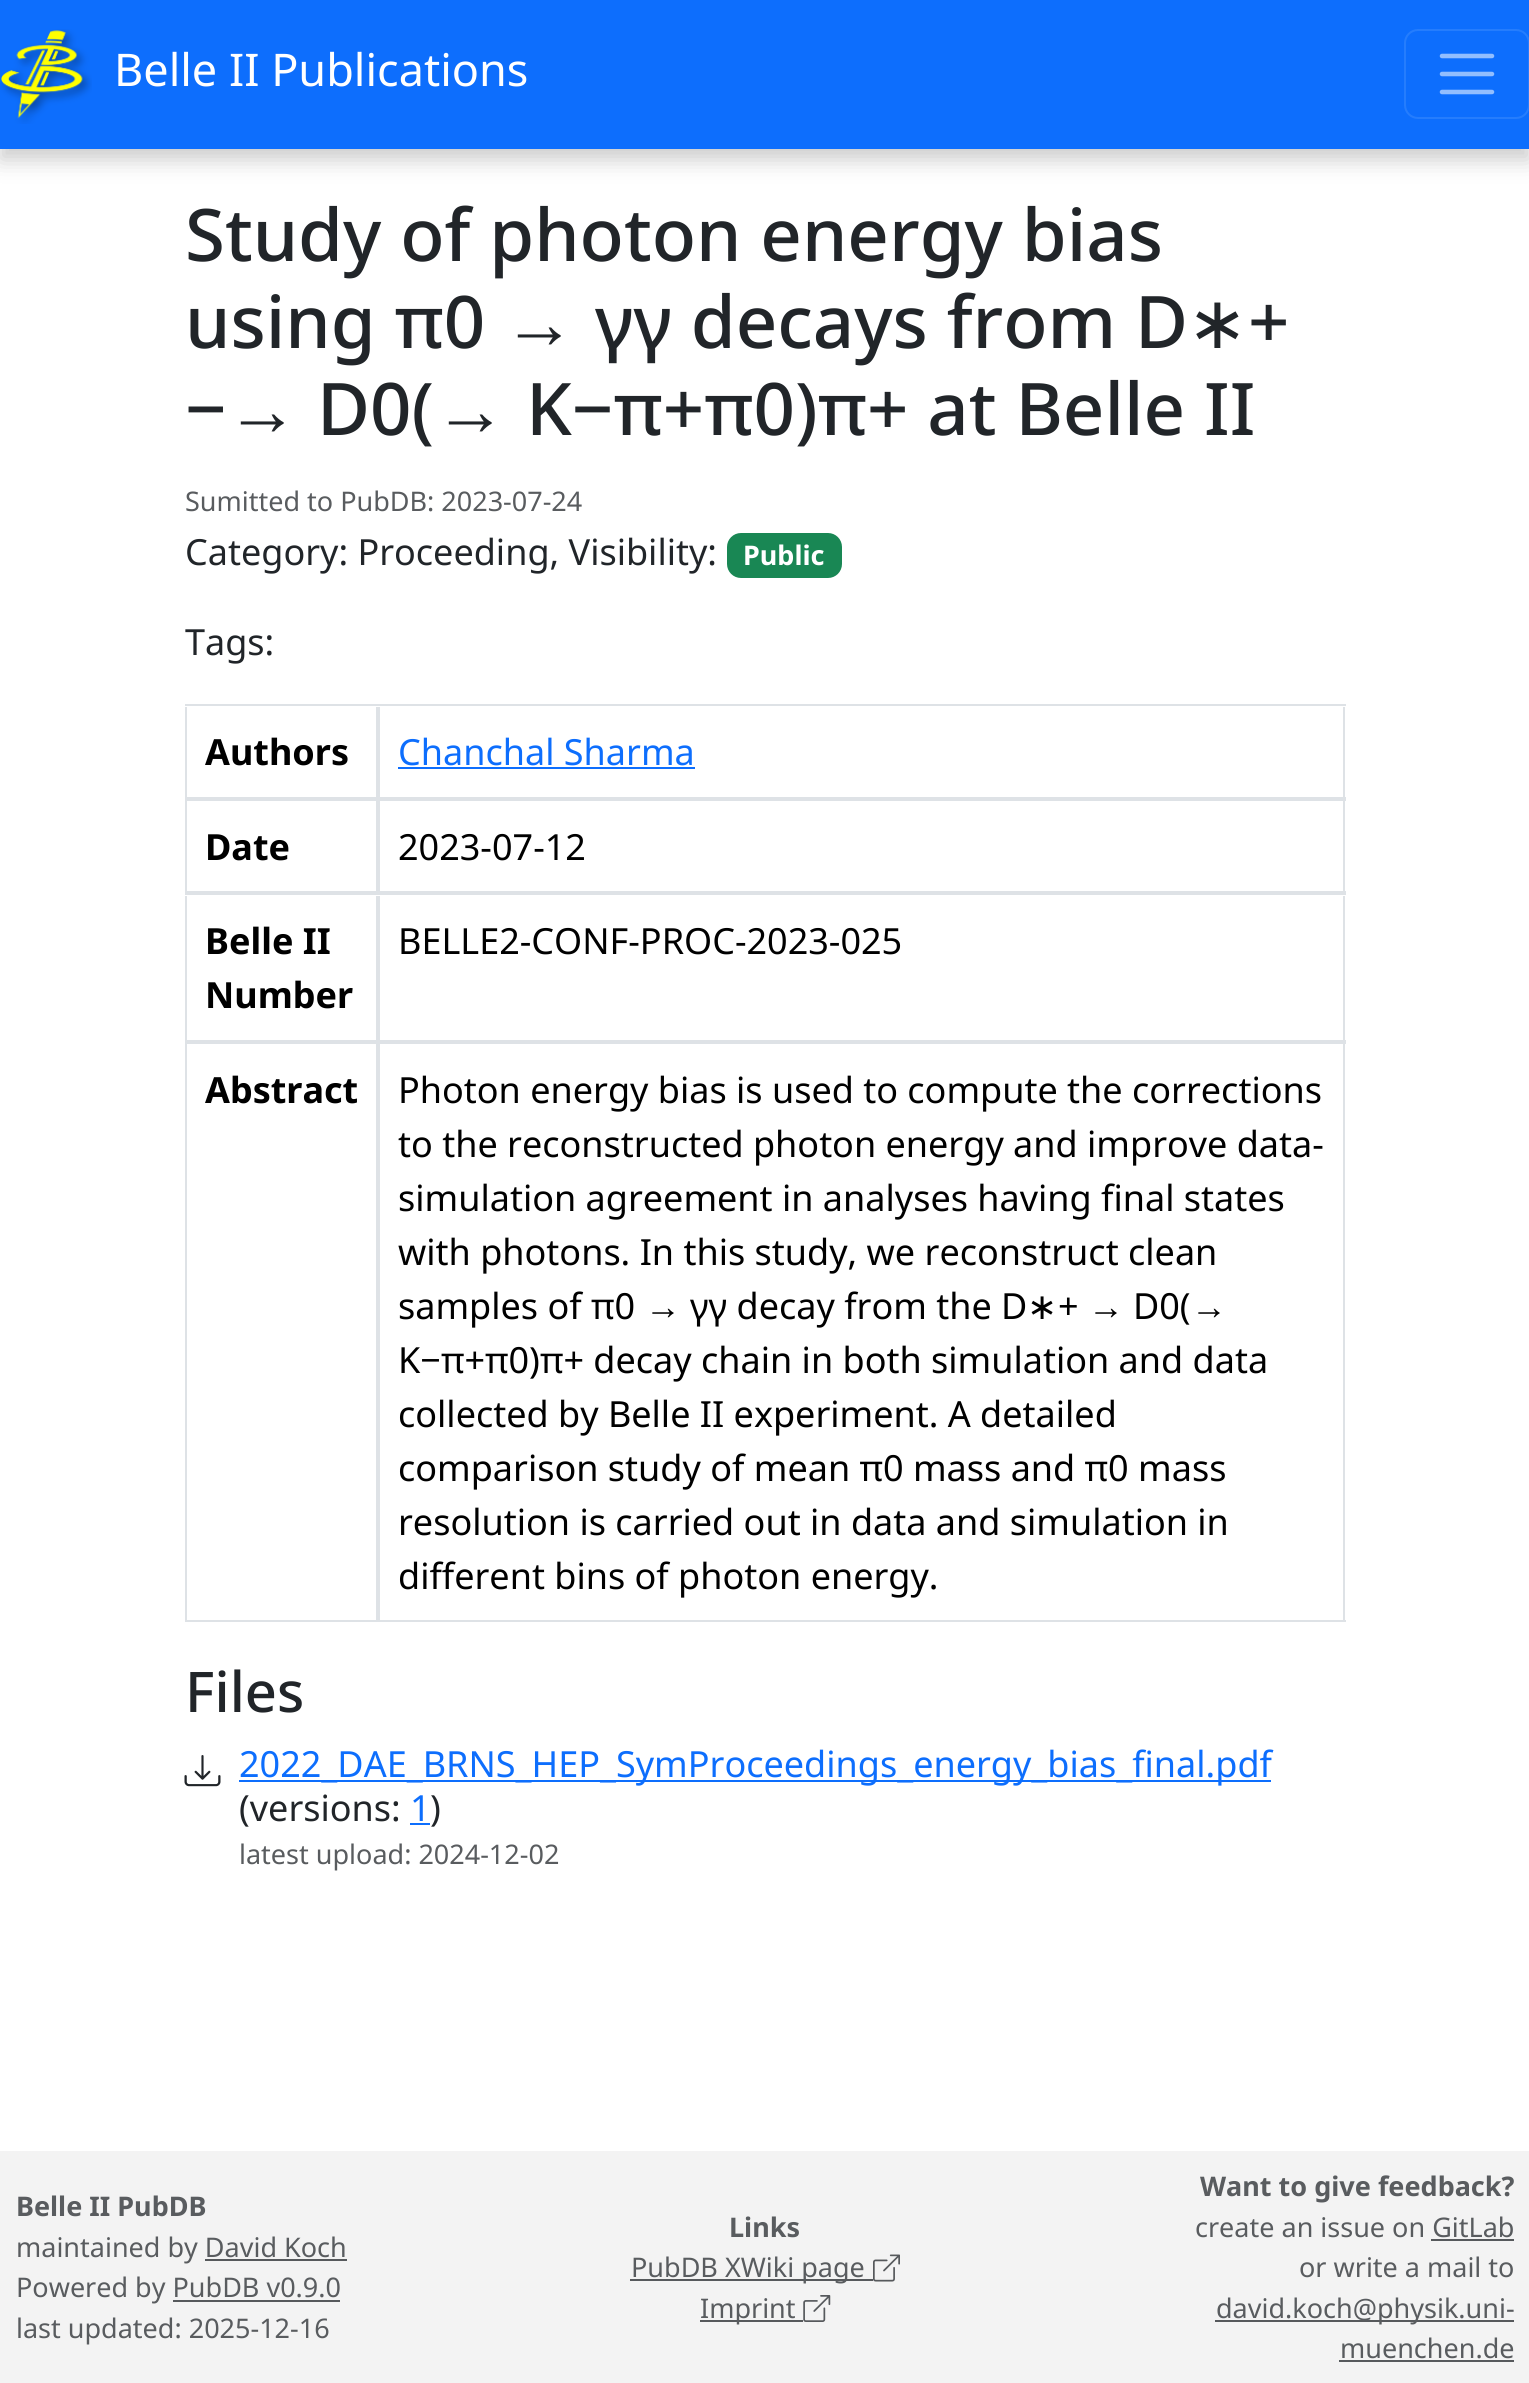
import math
import cairo



def rounded_rect(context, x, y, w, h, r):
    context.new_sub_path()
    for i, (u, v) in enumerate([(x + w - r, y + h - r), (x + r, y + h - r), (x + r, y + r), (x + w - r, y + r)]):
        context.arc(u, v, r, i * math.pi / 2, (i + 1) * math.pi / 2)
    context.close_path()


def draw_shadow(context, x, y, w, h, r, blur, alpha):
    context.push_group_with_content(cairo.Content.ALPHA)
    context.set_operator(cairo.Operator.SOURCE)
    for i in range(15, -16, -2):
        e = blur * i / 6
        if min(w, h) + 2 * e > 0:
            context.set_source_rgba(0, 0, 0, alpha * math.erfc((i - 1) / 8.5) / 2)
            rounded_rect(context, x - e, y - e, w + 2 * e, h + 2 * e, max(0, min(r + e + blur * .6, min(w, h) / 2 + e)))
            context.fill()
    context.mask(context.pop_group())


def draw_image(context, path, x, y, w, h):
    context.save()
    context.set_source_surface(cairo.ImageSurface.create_from_png(path), x, y)
    context.rectangle(x, y, w, h)
    context.fill()
    context.restore()


def draw(context):
    context.set_source_rgb(1, 1, 1)
    context.paint()
    context.set_source_rgb(1 / 255, 1 / 255, 1 / 255)
    draw_shadow(context, 0, 11, 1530, 149, 0, 11, 0.2)
    context.set_source_rgb(13 / 255, 110 / 255, 253 / 255)
    context.rectangle(0, 0, 1529, 149)
    context.fill()
    draw_image(context, "images/1.png", 0, 29, 92, 95)
    rounded_rect(context, 1405, 30, 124, 88, 13)
    context.set_source_rgb(37 / 255, 125 / 255, 253 / 255)
    context.stroke()
    context.new_path()
    context.move_to(1442, 56)
    context.line_to(1492, 56)
    context.move_to(1442, 74)
    context.line_to(1492, 74)
    context.move_to(1442, 92)
    context.line_to(1492, 92)
    context.set_source_rgb(146 / 255, 190 / 255, 254 / 255)
    context.set_line_width(4.5)
    context.set_line_cap(cairo.LineCap.ROUND)
    context.stroke()
    context.set_source_rgb(25 / 255, 135 / 255, 84 / 255)
    rounded_rect(context, 727, 533, 115, 45, 14)
    context.fill()
    context.set_source_rgb(222 / 255, 226 / 255, 230 / 255)
    context.rectangle(185, 704, 1161, 2)
    context.fill()
    context.rectangle(185, 797, 1161, 4)
    context.fill()
    context.rectangle(376, 707, 4, 90)
    context.fill()
    context.rectangle(185, 707, 2, 90)
    context.fill()
    context.rectangle(1343, 707, 2, 90)
    context.fill()
    context.set_source_rgb(13 / 255, 110 / 255, 253 / 255)
    context.rectangle(398, 767, 297, 2)
    context.fill()
    context.set_source_rgb(222 / 255, 226 / 255, 230 / 255)
    context.rectangle(185, 891, 1161, 4)
    context.fill()
    context.rectangle(376, 801, 4, 90)
    context.fill()
    context.rectangle(185, 801, 2, 90)
    context.fill()
    context.rectangle(1343, 801, 2, 90)
    context.fill()
    context.rectangle(185, 1040, 1161, 4)
    context.fill()
    context.rectangle(376, 896, 4, 144)
    context.fill()
    context.rectangle(185, 896, 2, 144)
    context.fill()
    context.rectangle(1343, 896, 2, 144)
    context.fill()
    context.rectangle(185, 1620, 1161, 2)
    context.fill()
    context.rectangle(376, 1044, 4, 576)
    context.fill()
    context.rectangle(185, 1044, 2, 576)
    context.fill()
    context.rectangle(1343, 1044, 2, 576)
    context.fill()
    draw_image(context, "images/2.png", 184, 1755, 37, 32)
    context.set_source_rgb(13 / 255, 110 / 255, 253 / 255)
    context.rectangle(239, 1780, 1032, 2)
    context.fill()
    context.rectangle(410, 1823, 20, 2)
    context.fill()
    context.set_source_rgb(243 / 255, 243 / 255, 243 / 255)
    context.rectangle(0, 2151, 1529, 232)
    context.fill()
    context.set_source_rgb(86 / 255, 89 / 255, 92 / 255)
    context.rectangle(630, 2279, 243, 2)
    context.fill()
    draw_image(context, "images/3.png", 873, 2254, 27, 28)
    context.rectangle(700, 2320, 103, 2)
    context.fill()
    draw_image(context, "images/4.png", 803, 2295, 28, 27)
    context.rectangle(1431, 2239, 83, 2)
    context.fill()
    context.rectangle(1215, 2320, 299, 2)
    context.fill()
    context.rectangle(1339, 2360, 175, 2)
    context.fill()
    context.select_font_face("Noto Sans")
    context.set_font_size(45)
    context.set_source_rgb(1, 1, 1)
    context.move_to(114, 86)
    context.show_text("Belle II Publications")
    context.select_font_face("Noto Sans Medium")
    context.set_font_size(72.5)
    context.set_source_rgb(33 / 255, 37 / 255, 41 / 255)
    context.move_to(185, 261)
    context.show_text("Study of photon energy bias")
    context.move_to(185, 348)
    context.show_text("using π0")
    context.select_font_face("Liberation Sans")
    context.move_to(503, 348)
    context.show_text("→")
    context.select_font_face("Noto Sans Medium")
    context.move_to(595, 348)
    context.show_text("γγ decays from D")
    context.select_font_face("DejaVu Sans")
    context.move_to(1187, 348)
    context.show_text("∗")
    context.select_font_face("Noto Sans Medium")
    context.move_to(1248, 348)
    context.show_text("+")
    context.move_to(185, 435)
    context.show_text("−")
    context.move_to(317, 435)
    context.show_text("D0(")
    context.move_to(526, 435)
    context.show_text("K−π+π0)π+ at Belle II")
    context.select_font_face("Liberation Sans")
    context.move_to(226, 435)
    context.show_text("→")
    context.move_to(434, 435)
    context.show_text("→")
    context.select_font_face("Noto Sans")
    context.set_font_size(27)
    context.set_source_rgb(89 / 255, 92 / 255, 95 / 255)
    context.move_to(185, 511)
    context.show_text("Sumitted to PubDB: 2023-07-24")
    context.set_font_size(36)
    context.set_source_rgb(33 / 255, 37 / 255, 41 / 255)
    context.move_to(185, 565)
    context.show_text("Category: Proceeding, Visibility:")
    context.select_font_face("Noto Sans", cairo.FontSlant.NORMAL, cairo.FontWeight.BOLD)
    context.set_font_size(27)
    context.set_source_rgb(1, 1, 1)
    context.move_to(743, 565)
    context.show_text("Public")
    context.select_font_face("Noto Sans")
    context.set_font_size(36)
    context.set_source_rgb(33 / 255, 37 / 255, 41 / 255)
    context.move_to(185, 655)
    context.show_text("Tags:")
    context.select_font_face("Noto Sans", cairo.FontSlant.NORMAL, cairo.FontWeight.BOLD)
    context.set_source_rgb(0, 0, 0)
    context.move_to(205, 765)
    context.show_text("Authors")
    context.select_font_face("Noto Sans")
    context.set_source_rgb(13 / 255, 110 / 255, 253 / 255)
    context.move_to(398, 765)
    context.show_text("Chanchal Sharma")
    context.select_font_face("Noto Sans", cairo.FontSlant.NORMAL, cairo.FontWeight.BOLD)
    context.set_source_rgb(0, 0, 0)
    context.move_to(205, 860)
    context.show_text("Date")
    context.select_font_face("Noto Sans")
    context.move_to(398, 860)
    context.show_text("2023-07-12")
    context.select_font_face("Noto Sans", cairo.FontSlant.NORMAL, cairo.FontWeight.BOLD)
    context.move_to(205, 954)
    context.show_text("Belle II")
    context.move_to(205, 1008)
    context.show_text("Number")
    context.select_font_face("Noto Sans")
    context.move_to(398, 954)
    context.show_text("BELLE2-CONF-PROC-2023-025")
    context.select_font_face("Noto Sans", cairo.FontSlant.NORMAL, cairo.FontWeight.BOLD)
    context.move_to(205, 1103)
    context.show_text("Abstract")
    context.select_font_face("Noto Sans")
    context.move_to(398, 1103)
    context.show_text("Photon energy bias is used to compute the corrections")
    context.move_to(398, 1157)
    context.show_text("to the reconstructed photon energy and improve data-")
    context.move_to(398, 1211)
    context.show_text("simulation agreement in analyses having final states")
    context.move_to(398, 1265)
    context.show_text("with photons. In this study, we reconstruct clean")
    context.move_to(398, 1319)
    context.show_text("samples of π0")
    context.select_font_face("Liberation Sans")
    context.move_to(645, 1319)
    context.show_text("→")
    context.select_font_face("Noto Sans")
    context.move_to(690, 1319)
    context.show_text("γγ decay from the D")
    context.select_font_face("DejaVu Sans")
    context.move_to(1027, 1319)
    context.show_text("∗")
    context.select_font_face("Noto Sans")
    context.move_to(1058, 1319)
    context.show_text("+")
    context.select_font_face("Liberation Sans")
    context.move_to(1088, 1319)
    context.show_text("→")
    context.select_font_face("Noto Sans")
    context.move_to(1133, 1319)
    context.show_text("D0(")
    context.select_font_face("Liberation Sans")
    context.move_to(1191, 1319)
    context.show_text("→")
    context.select_font_face("Noto Sans")
    context.move_to(398, 1373)
    context.show_text("K−π+π0)π+ decay chain in both simulation and data")
    context.move_to(398, 1427)
    context.show_text("collected by Belle II experiment. A detailed")
    context.move_to(398, 1481)
    context.show_text("comparison study of mean π0 mass and π0 mass")
    context.move_to(398, 1535)
    context.show_text("resolution is carried out in data and simulation in")
    context.move_to(398, 1589)
    context.show_text("different bins of photon energy.")
    context.select_font_face("Noto Sans Medium")
    context.set_font_size(56)
    context.set_source_rgb(33 / 255, 37 / 255, 41 / 255)
    context.move_to(185, 1712)
    context.show_text("Files")
    context.select_font_face("Noto Sans")
    context.set_font_size(36)
    context.set_source_rgb(13 / 255, 110 / 255, 253 / 255)
    context.move_to(239, 1777)
    context.show_text("2022_DAE_BRNS_HEP_SymProceedings_energy_bias_final.pdf")
    context.set_source_rgb(33 / 255, 37 / 255, 41 / 255)
    context.move_to(239, 1821)
    context.show_text("(versions:")
    context.set_source_rgb(13 / 255, 110 / 255, 253 / 255)
    context.move_to(410, 1821)
    context.show_text("1")
    context.set_source_rgb(33 / 255, 37 / 255, 41 / 255)
    context.move_to(430, 1821)
    context.show_text(")")
    context.set_font_size(27)
    context.set_source_rgb(89 / 255, 92 / 255, 95 / 255)
    context.move_to(239, 1864)
    context.show_text("latest upload: 2024-12-02")
    context.select_font_face("Noto Sans", cairo.FontSlant.NORMAL, cairo.FontWeight.BOLD)
    context.move_to(16, 2216)
    context.show_text("Belle II PubDB")
    context.select_font_face("Noto Sans")
    context.move_to(16, 2257)
    context.show_text("maintained by David Koch")
    context.set_source_rgb(86 / 255, 89 / 255, 92 / 255)
    context.rectangle(205, 2259, 142, 2)
    context.fill()
    context.set_source_rgb(89 / 255, 92 / 255, 95 / 255)
    context.move_to(16, 2297)
    context.show_text("Powered by PubDB v0.9.0")
    context.set_source_rgb(86 / 255, 89 / 255, 92 / 255)
    context.rectangle(173, 2300, 167, 2)
    context.fill()
    context.set_source_rgb(89 / 255, 92 / 255, 95 / 255)
    context.move_to(16, 2338)
    context.show_text("last updated: 2025-12-16")
    context.select_font_face("Noto Sans", cairo.FontSlant.NORMAL, cairo.FontWeight.BOLD)
    context.move_to(729, 2237)
    context.show_text("Links")
    context.select_font_face("Noto Sans")
    context.move_to(631, 2277)
    context.show_text("PubDB XWiki page")
    context.move_to(700, 2318)
    context.show_text("Imprint")
    context.select_font_face("Noto Sans", cairo.FontSlant.NORMAL, cairo.FontWeight.BOLD)
    context.move_to(1200, 2196)
    context.show_text("Want to give feedback?")
    context.select_font_face("Noto Sans")
    context.move_to(1195, 2237)
    context.show_text("create an issue on GitLab")
    context.move_to(1299, 2277)
    context.show_text("or write a mail to")
    context.move_to(1216, 2318)
    context.show_text("david.koch@physik.uni-")
    context.move_to(1340, 2358)
    context.show_text("muenchen.de")


surface = cairo.ImageSurface(cairo.Format.RGB24, 1529, 2383)
context = cairo.Context(surface)
options = cairo.FontOptions()
options.set_hint_metrics(cairo.HintMetrics.OFF)
options.set_hint_style(cairo.HintStyle.NONE)
context.set_font_options(options)
context.set_miter_limit(4)
draw(context)
surface.write_to_png("out.png")
